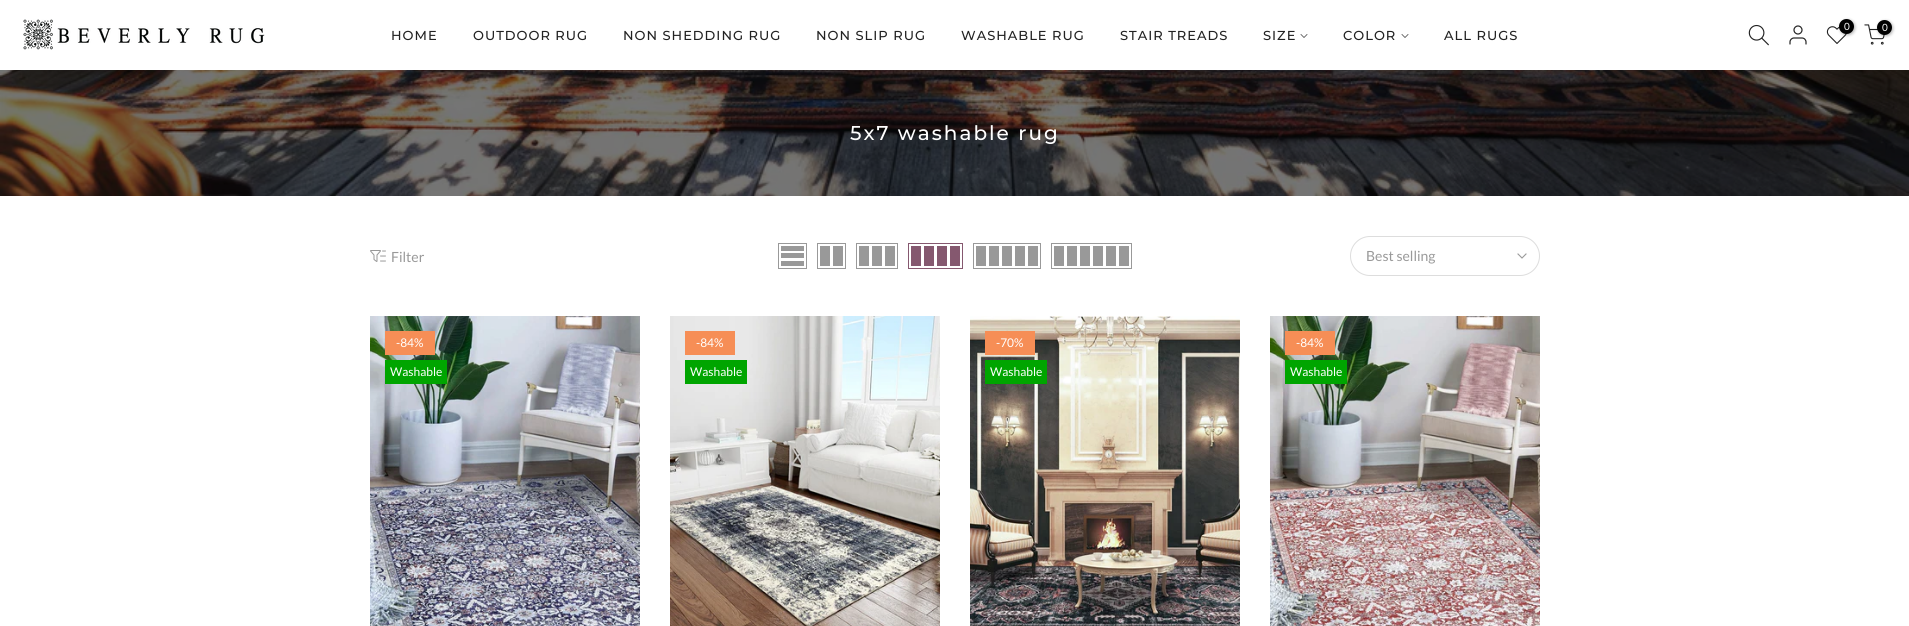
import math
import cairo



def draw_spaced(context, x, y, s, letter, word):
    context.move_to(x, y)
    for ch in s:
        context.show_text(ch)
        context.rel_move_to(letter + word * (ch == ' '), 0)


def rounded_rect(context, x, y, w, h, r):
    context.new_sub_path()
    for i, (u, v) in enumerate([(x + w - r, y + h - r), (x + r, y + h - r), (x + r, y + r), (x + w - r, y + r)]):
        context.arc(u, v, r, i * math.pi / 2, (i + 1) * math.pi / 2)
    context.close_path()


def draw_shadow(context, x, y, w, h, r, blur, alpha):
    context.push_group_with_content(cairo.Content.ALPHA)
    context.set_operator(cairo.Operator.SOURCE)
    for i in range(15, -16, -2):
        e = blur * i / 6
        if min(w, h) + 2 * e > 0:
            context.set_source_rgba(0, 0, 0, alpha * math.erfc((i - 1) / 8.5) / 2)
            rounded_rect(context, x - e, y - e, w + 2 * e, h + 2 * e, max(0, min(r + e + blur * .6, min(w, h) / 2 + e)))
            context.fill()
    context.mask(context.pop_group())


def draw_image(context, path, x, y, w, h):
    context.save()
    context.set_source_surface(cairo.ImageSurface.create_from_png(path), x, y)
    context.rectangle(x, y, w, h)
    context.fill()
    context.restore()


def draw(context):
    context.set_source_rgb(1, 1, 1)
    context.paint()
    draw_image(context, "images/1.png", 23, 19, 242, 31)
    draw_image(context, "images/2.png", 1748, 24, 21, 22)
    draw_image(context, "images/3.png", 1789, 25, 18, 20)
    draw_image(context, "images/4.png", 1826, 26, 21, 18)
    context.set_source_rgb(0, 0, 0)
    draw_shadow(context, 1840, 20, 15, 15, 7.5, 1.5, 0.3)
    context.set_source_rgb(0, 0, 0)
    context.arc(1846.5, 26.5, 7.5, 0, 2 * math.pi)
    context.fill()
    draw_image(context, "images/5.png", 1864, 24, 21, 21)
    context.set_source_rgb(0, 0, 0)
    draw_shadow(context, 1878, 21, 15, 15, 7.5, 1.5, 0.3)
    context.set_source_rgb(0, 0, 0)
    context.arc(1884.5, 27.5, 7.5, 0, 2 * math.pi)
    context.fill()
    context.new_path()
    context.move_to(1307, 34.5)
    context.line_to(1304, 37.5)
    context.line_to(1301, 34.5)
    context.set_source_rgb(78 / 255, 78 / 255, 78 / 255)
    context.set_line_width(0.8)
    context.set_line_cap(cairo.LineCap.SQUARE)
    context.stroke()
    context.new_path()
    context.move_to(1408, 34.5)
    context.line_to(1405, 37.5)
    context.line_to(1402, 34.5)
    context.stroke()
    draw_image(context, "images/6.png", 0, 70, 1909, 126)
    draw_image(context, "images/7.png", 370, 250, 16, 12)
    context.rectangle(778.5, 243.5, 28, 25)
    context.set_source_rgb(153 / 255, 153 / 255, 153 / 255)
    context.set_line_width(1)
    context.set_line_cap(cairo.LineCap.BUTT)
    context.stroke()
    context.rectangle(781, 261, 23, 5)
    context.fill()
    context.rectangle(781, 253, 23, 5)
    context.fill()
    context.rectangle(781, 246, 23, 5)
    context.fill()
    context.rectangle(817.5, 243.5, 28, 25)
    context.stroke()
    context.rectangle(833, 246, 10, 20)
    context.fill()
    context.rectangle(820, 246, 10, 20)
    context.fill()
    context.rectangle(856.5, 243.5, 41, 25)
    context.stroke()
    context.rectangle(885, 246, 10, 20)
    context.fill()
    context.rectangle(872, 246, 10, 20)
    context.fill()
    context.rectangle(859, 246, 10, 20)
    context.fill()
    context.rectangle(908.5, 243.5, 54, 25)
    context.set_source_rgb(133 / 255, 88 / 255, 111 / 255)
    context.stroke()
    context.rectangle(950, 246, 10, 20)
    context.fill()
    context.rectangle(937, 246, 10, 20)
    context.fill()
    context.rectangle(924, 246, 10, 20)
    context.fill()
    context.rectangle(911, 246, 10, 20)
    context.fill()
    context.rectangle(973.5, 243.5, 67, 25)
    context.set_source_rgb(153 / 255, 153 / 255, 153 / 255)
    context.stroke()
    context.rectangle(1028, 246, 10, 20)
    context.fill()
    context.rectangle(1015, 246, 10, 20)
    context.fill()
    context.rectangle(1002, 246, 10, 20)
    context.fill()
    context.rectangle(989, 246, 10, 20)
    context.fill()
    context.rectangle(976, 246, 10, 20)
    context.fill()
    context.rectangle(1051.5, 243.5, 80, 25)
    context.stroke()
    context.rectangle(1119, 246, 10, 20)
    context.fill()
    context.rectangle(1106, 246, 10, 20)
    context.fill()
    context.rectangle(1093, 246, 10, 20)
    context.fill()
    context.rectangle(1080, 246, 10, 20)
    context.fill()
    context.rectangle(1067, 246, 10, 20)
    context.fill()
    context.rectangle(1054, 246, 10, 20)
    context.fill()
    rounded_rect(context, 1350.5, 236.5, 189, 39, 19.5)
    context.set_source_rgb(221 / 255, 221 / 255, 221 / 255)
    context.stroke()
    context.new_path()
    context.move_to(1526, 254)
    context.line_to(1522, 258)
    context.line_to(1518, 254)
    context.set_source_rgb(153 / 255, 153 / 255, 153 / 255)
    context.set_line_width(1.1)
    context.set_line_cap(cairo.LineCap.SQUARE)
    context.stroke()
    draw_image(context, "images/8.png", 370, 316, 270, 310)
    context.set_source_rgb(246 / 255, 142 / 255, 86 / 255)
    context.rectangle(385, 331, 50, 24)
    context.fill()
    context.set_source_rgb(0, 165 / 255, 0)
    context.rectangle(385, 360, 62, 24)
    context.fill()
    draw_image(context, "images/9.png", 670, 316, 270, 310)
    context.set_source_rgb(246 / 255, 142 / 255, 86 / 255)
    context.rectangle(685, 331, 50, 24)
    context.fill()
    context.set_source_rgb(0, 165 / 255, 0)
    context.rectangle(685, 360, 62, 24)
    context.fill()
    draw_image(context, "images/10.png", 970, 316, 270, 310)
    context.set_source_rgb(246 / 255, 142 / 255, 86 / 255)
    context.rectangle(985, 331, 50, 24)
    context.fill()
    context.set_source_rgb(0, 165 / 255, 0)
    context.rectangle(985, 360, 62, 24)
    context.fill()
    draw_image(context, "images/11.png", 1270, 316, 270, 310)
    context.set_source_rgb(246 / 255, 142 / 255, 86 / 255)
    context.rectangle(1285, 331, 50, 24)
    context.fill()
    context.set_source_rgb(0, 165 / 255, 0)
    context.rectangle(1285, 360, 62, 24)
    context.fill()
    context.select_font_face("Lato")
    context.set_font_size(10)
    context.set_source_rgb(1, 1, 1)
    context.move_to(1844, 30)
    context.show_text("0")
    context.move_to(1882, 31)
    context.show_text("0")
    context.select_font_face("Montserrat Medium")
    context.set_font_size(13)
    context.set_source_rgb(34 / 255, 34 / 255, 34 / 255)
    draw_spaced(context, 391, 40, "HOME", 1, 0)
    draw_spaced(context, 473, 40, "OUTDOOR RUG", 1, 0)
    draw_spaced(context, 623, 40, "NON SHEDDING RUG", 1, 0)
    draw_spaced(context, 816, 40, "NON SLIP RUG", 1, 0)
    draw_spaced(context, 961, 40, "WASHABLE RUG", 1, 0)
    draw_spaced(context, 1120, 40, "STAIR TREADS", 1, 0)
    draw_spaced(context, 1263, 40, "SIZE", 1, 0)
    draw_spaced(context, 1343, 40, "COLOR", 1, 0)
    draw_spaced(context, 1444, 40, "ALL RUGS", 1, 0)
    context.set_font_size(20)
    context.set_source_rgb(1, 1, 1)
    draw_spaced(context, 850, 140, "5x7 washable rug", 2, 0)
    context.select_font_face("Lato")
    context.set_font_size(14)
    context.set_source_rgb(153 / 255, 153 / 255, 153 / 255)
    context.move_to(391, 262)
    context.show_text("Filter")
    context.move_to(1366, 261)
    context.show_text("Best selling")
    context.set_font_size(12)
    context.set_source_rgb(1, 1, 1)
    context.move_to(396, 347)
    context.show_text("-84%")
    context.move_to(390, 376)
    context.show_text("Washable")
    context.move_to(696, 347)
    context.show_text("-84%")
    context.move_to(690, 376)
    context.show_text("Washable")
    context.move_to(996, 347)
    context.show_text("-70%")
    context.move_to(990, 376)
    context.show_text("Washable")
    context.move_to(1296, 347)
    context.show_text("-84%")
    context.move_to(1290, 376)
    context.show_text("Washable")


surface = cairo.ImageSurface(cairo.Format.RGB24, 1909, 626)
context = cairo.Context(surface)
options = cairo.FontOptions()
options.set_hint_metrics(cairo.HintMetrics.OFF)
options.set_hint_style(cairo.HintStyle.NONE)
context.set_font_options(options)
context.set_miter_limit(4)
draw(context)
surface.write_to_png("out.png")
